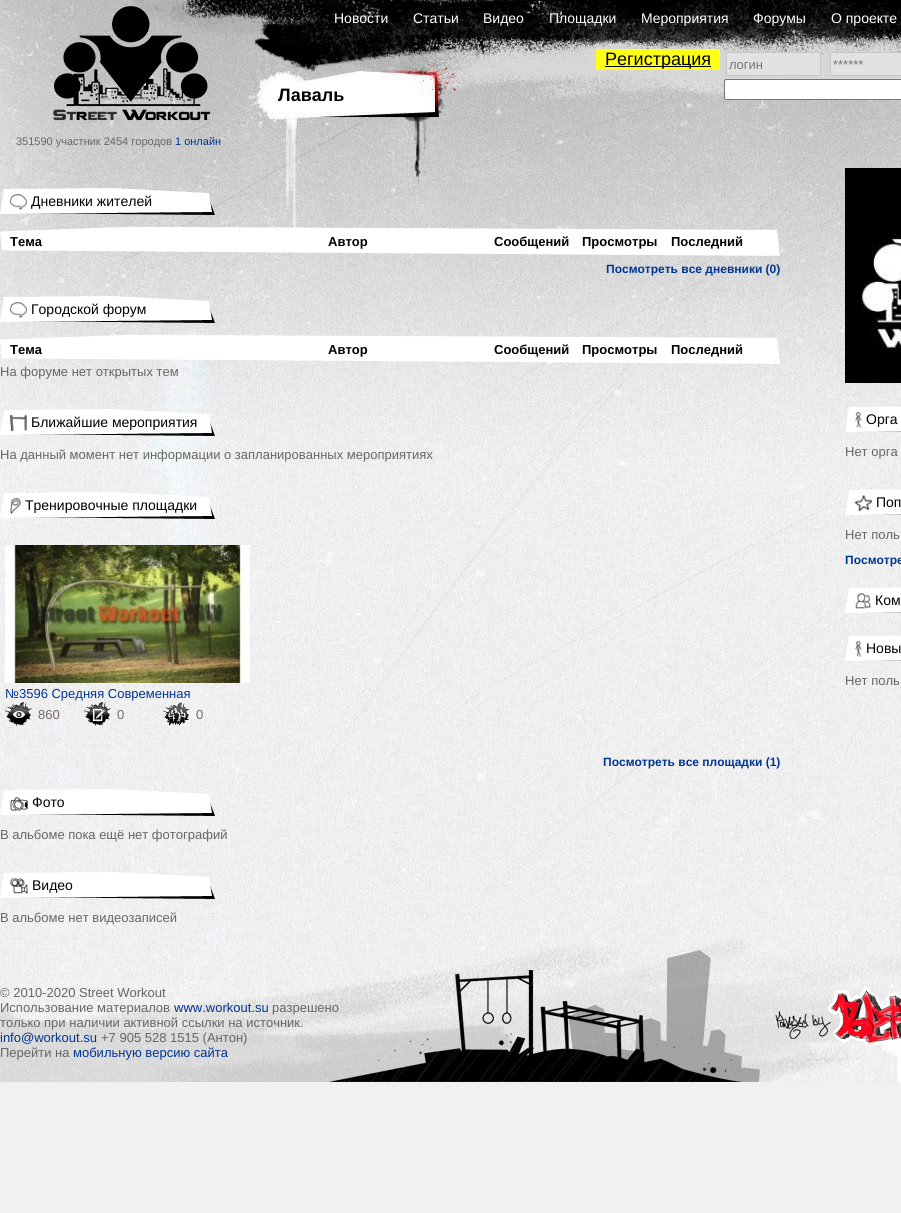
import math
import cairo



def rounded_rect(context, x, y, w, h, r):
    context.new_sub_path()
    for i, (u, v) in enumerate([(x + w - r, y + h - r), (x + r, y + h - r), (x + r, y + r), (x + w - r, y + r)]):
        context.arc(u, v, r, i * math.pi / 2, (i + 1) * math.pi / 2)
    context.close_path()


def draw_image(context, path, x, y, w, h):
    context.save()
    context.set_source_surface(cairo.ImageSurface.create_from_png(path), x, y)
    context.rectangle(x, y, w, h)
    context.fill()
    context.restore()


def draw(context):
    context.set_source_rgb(241 / 255, 241 / 255, 241 / 255)
    context.paint()
    draw_image(context, "images/1.png", 0, 0, 901, 1082)
    context.set_source_rgb(1, 1, 22 / 255)
    context.rectangle(596, 49, 124, 21)
    context.fill()
    context.set_source_rgb(0, 0, 0)
    context.rectangle(605, 66, 106, 1)
    context.fill()
    context.set_source_rgb(226 / 255, 226 / 255, 226 / 255)
    context.rectangle(726.5, 52.5, 94, 23)
    context.fill_preserve()
    context.set_source_rgb(198 / 255, 198 / 255, 198 / 255)
    context.set_line_width(1)
    context.stroke()
    context.set_source_rgb(226 / 255, 226 / 255, 226 / 255)
    context.rectangle(830.5, 52.5, 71, 23)
    context.fill_preserve()
    context.set_source_rgb(198 / 255, 198 / 255, 198 / 255)
    context.stroke()
    context.set_source_rgb(1, 1, 1)
    rounded_rect(context, 724.5, 79.5, 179, 20, 1.5)
    context.fill_preserve()
    context.set_source_rgb(118 / 255, 118 / 255, 118 / 255)
    context.stroke()
    draw_image(context, "images/2.png", 0, 188, 215, 27)
    draw_image(context, "images/3.png", 10, 194, 17, 16)
    draw_image(context, "images/4.png", 0, 226, 780, 30)
    draw_image(context, "images/5.png", 0, 296, 215, 27)
    draw_image(context, "images/3.png", 10, 302, 17, 16)
    draw_image(context, "images/6.png", 0, 334, 780, 30)
    draw_image(context, "images/7.png", 0, 409, 215, 27)
    draw_image(context, "images/8.png", 10, 415, 17, 16)
    draw_image(context, "images/9.png", 0, 492, 215, 27)
    draw_image(context, "images/10.png", 10, 498, 11, 16)
    draw_image(context, "images/11.png", 5, 545, 245, 138)
    draw_image(context, "images/12.png", 5, 702, 27, 24)
    draw_image(context, "images/13.png", 84, 702, 27, 24)
    draw_image(context, "images/14.png", 163, 702, 27, 24)
    draw_image(context, "images/15.png", 0, 789, 215, 27)
    draw_image(context, "images/16.png", 10, 797, 18, 14)
    draw_image(context, "images/17.png", 0, 872, 215, 27)
    draw_image(context, "images/18.png", 10, 878, 18, 16)
    draw_image(context, "images/19.png", 845, 168, 56, 215)
    draw_image(context, "images/20.png", 845, 406, 56, 26)
    draw_image(context, "images/21.png", 855, 412, 7, 16)
    draw_image(context, "images/22.png", 845, 489, 56, 26)
    draw_image(context, "images/23.png", 855, 495, 17, 16)
    draw_image(context, "images/24.png", 845, 587, 56, 26)
    draw_image(context, "images/25.png", 855, 593, 16, 16)
    draw_image(context, "images/26.png", 845, 635, 56, 26)
    draw_image(context, "images/21.png", 855, 641, 7, 16)
    draw_image(context, "images/27.png", 0, 938, 901, 144)
    context.select_font_face("Liberation Sans")
    context.set_font_size(14)
    context.set_source_rgb(1, 1, 1)
    context.move_to(334, 23)
    context.show_text("Новости")
    context.move_to(413, 23)
    context.show_text("Статьи")
    context.move_to(483, 23)
    context.show_text("Видео")
    context.move_to(549, 23)
    context.show_text("Площадки")
    context.move_to(641, 23)
    context.show_text("Мероприятия")
    context.move_to(753, 23)
    context.show_text("Форумы")
    context.move_to(831, 23)
    context.show_text("О проекте")
    context.set_font_size(18)
    context.set_source_rgb(0, 0, 0)
    context.move_to(605, 65)
    context.show_text("Регистрация")
    context.set_font_size(13)
    context.set_source_rgb(117 / 255, 117 / 255, 117 / 255)
    context.move_to(729, 69)
    context.show_text("логин")
    context.move_to(833, 69)
    context.show_text("******")
    context.select_font_face("Liberation Sans", cairo.FontSlant.NORMAL, cairo.FontWeight.BOLD)
    context.set_font_size(18)
    context.set_source_rgb(0, 0, 0)
    context.move_to(278, 101)
    context.show_text("Лаваль")
    context.select_font_face("Liberation Sans")
    context.set_font_size(11)
    context.set_source_rgb(102 / 255, 102 / 255, 102 / 255)
    context.move_to(16, 145)
    context.show_text("351590 участник 2454 городов")
    context.set_source_rgb(0, 53 / 255, 146 / 255)
    context.move_to(175, 145)
    context.show_text("1 онлайн")
    context.set_font_size(14)
    context.set_source_rgb(0, 0, 0)
    context.move_to(31, 206)
    context.show_text("Дневники жителей")
    context.select_font_face("Liberation Sans", cairo.FontSlant.NORMAL, cairo.FontWeight.BOLD)
    context.set_font_size(13)
    context.move_to(10, 246)
    context.show_text("Тема")
    context.move_to(328, 246)
    context.show_text("Автор")
    context.move_to(494, 246)
    context.show_text("Сообщений")
    context.move_to(582, 246)
    context.show_text("Просмотры")
    context.move_to(671, 246)
    context.show_text("Последний")
    context.set_font_size(12)
    context.set_source_rgb(0, 53 / 255, 146 / 255)
    context.move_to(606, 273)
    context.show_text("Посмотреть все дневники (0)")
    context.select_font_face("Liberation Sans")
    context.set_font_size(14)
    context.set_source_rgb(0, 0, 0)
    context.move_to(31, 314)
    context.show_text("Городской форум")
    context.select_font_face("Liberation Sans", cairo.FontSlant.NORMAL, cairo.FontWeight.BOLD)
    context.set_font_size(13)
    context.move_to(10, 354)
    context.show_text("Тема")
    context.move_to(328, 354)
    context.show_text("Автор")
    context.move_to(494, 354)
    context.show_text("Сообщений")
    context.move_to(582, 354)
    context.show_text("Просмотры")
    context.move_to(671, 354)
    context.show_text("Последний")
    context.select_font_face("Liberation Sans")
    context.set_source_rgb(102 / 255, 102 / 255, 102 / 255)
    context.move_to(0, 376)
    context.show_text("На форуме нет открытых тем")
    context.set_font_size(14)
    context.set_source_rgb(0, 0, 0)
    context.move_to(31, 427)
    context.show_text("Ближайшие мероприятия")
    context.set_font_size(13)
    context.set_source_rgb(102 / 255, 102 / 255, 102 / 255)
    context.move_to(0, 459)
    context.show_text("На данный момент нет информации о запланированных мероприятиях")
    context.set_font_size(14)
    context.set_source_rgb(0, 0, 0)
    context.move_to(25, 510)
    context.show_text("Тренировочные площадки")
    context.set_font_size(13)
    context.set_source_rgb(0, 53 / 255, 146 / 255)
    context.move_to(5, 698)
    context.show_text("№3596 Средняя Современная")
    context.set_source_rgb(115 / 255, 104 / 255, 102 / 255)
    context.move_to(38, 719)
    context.show_text("860")
    context.move_to(117, 719)
    context.show_text("0")
    context.move_to(196, 719)
    context.show_text("0")
    context.select_font_face("Liberation Sans", cairo.FontSlant.NORMAL, cairo.FontWeight.BOLD)
    context.set_font_size(12)
    context.set_source_rgb(0, 53 / 255, 146 / 255)
    context.move_to(603, 766)
    context.show_text("Посмотреть все площадки (1)")
    context.select_font_face("Liberation Sans")
    context.set_font_size(14)
    context.set_source_rgb(0, 0, 0)
    context.move_to(32, 807)
    context.show_text("Фото")
    context.set_font_size(13)
    context.set_source_rgb(102 / 255, 102 / 255, 102 / 255)
    context.move_to(0, 839)
    context.show_text("В альбоме пока ещё нет фотографий")
    context.set_font_size(14)
    context.set_source_rgb(0, 0, 0)
    context.move_to(32, 890)
    context.show_text("Видео")
    context.set_font_size(13)
    context.set_source_rgb(102 / 255, 102 / 255, 102 / 255)
    context.move_to(0, 922)
    context.show_text("В альбоме нет видеозаписей")
    context.set_font_size(14)
    context.set_source_rgb(0, 0, 0)
    context.move_to(866, 424)
    context.show_text("Орга")
    context.set_font_size(13)
    context.set_source_rgb(102 / 255, 102 / 255, 102 / 255)
    context.move_to(845, 456)
    context.show_text("Нет орга")
    context.set_font_size(14)
    context.set_source_rgb(0, 0, 0)
    context.move_to(876, 507)
    context.show_text("Поп")
    context.set_font_size(13)
    context.set_source_rgb(102 / 255, 102 / 255, 102 / 255)
    context.move_to(845, 539)
    context.show_text("Нет поль")
    context.select_font_face("Liberation Sans", cairo.FontSlant.NORMAL, cairo.FontWeight.BOLD)
    context.set_font_size(12)
    context.set_source_rgb(0, 53 / 255, 146 / 255)
    context.move_to(845, 564)
    context.show_text("Посмотре")
    context.select_font_face("Liberation Sans")
    context.set_font_size(14)
    context.set_source_rgb(0, 0, 0)
    context.move_to(875, 605)
    context.show_text("Ком")
    context.move_to(866, 653)
    context.show_text("Новы")
    context.set_font_size(13)
    context.set_source_rgb(102 / 255, 102 / 255, 102 / 255)
    context.move_to(845, 685)
    context.show_text("Нет поль")
    context.move_to(0, 997)
    context.show_text("© 2010-2020 Street Workout")
    context.move_to(0, 1012)
    context.show_text("Использование материалов")
    context.set_source_rgb(0, 53 / 255, 146 / 255)
    context.move_to(174, 1012)
    context.show_text("www.workout.su")
    context.set_source_rgb(102 / 255, 102 / 255, 102 / 255)
    context.move_to(272, 1012)
    context.show_text("разрешено")
    context.move_to(0, 1027)
    context.show_text("только при наличии активной ссылки на источник.")
    context.set_source_rgb(0, 53 / 255, 146 / 255)
    context.move_to(0, 1042)
    context.show_text("info@workout.su")
    context.set_source_rgb(102 / 255, 102 / 255, 102 / 255)
    context.move_to(101, 1042)
    context.show_text("+7 905 528 1515 (Антон)")
    context.move_to(0, 1057)
    context.show_text("Перейти на")
    context.set_source_rgb(0, 53 / 255, 146 / 255)
    context.move_to(73, 1057)
    context.show_text("мобильную версию сайта")


surface = cairo.ImageSurface(cairo.Format.RGB24, 901, 1213)
context = cairo.Context(surface)
options = cairo.FontOptions()
options.set_hint_metrics(cairo.HintMetrics.OFF)
options.set_hint_style(cairo.HintStyle.NONE)
context.set_font_options(options)
context.set_miter_limit(4)
draw(context)
surface.write_to_png("out.png")
